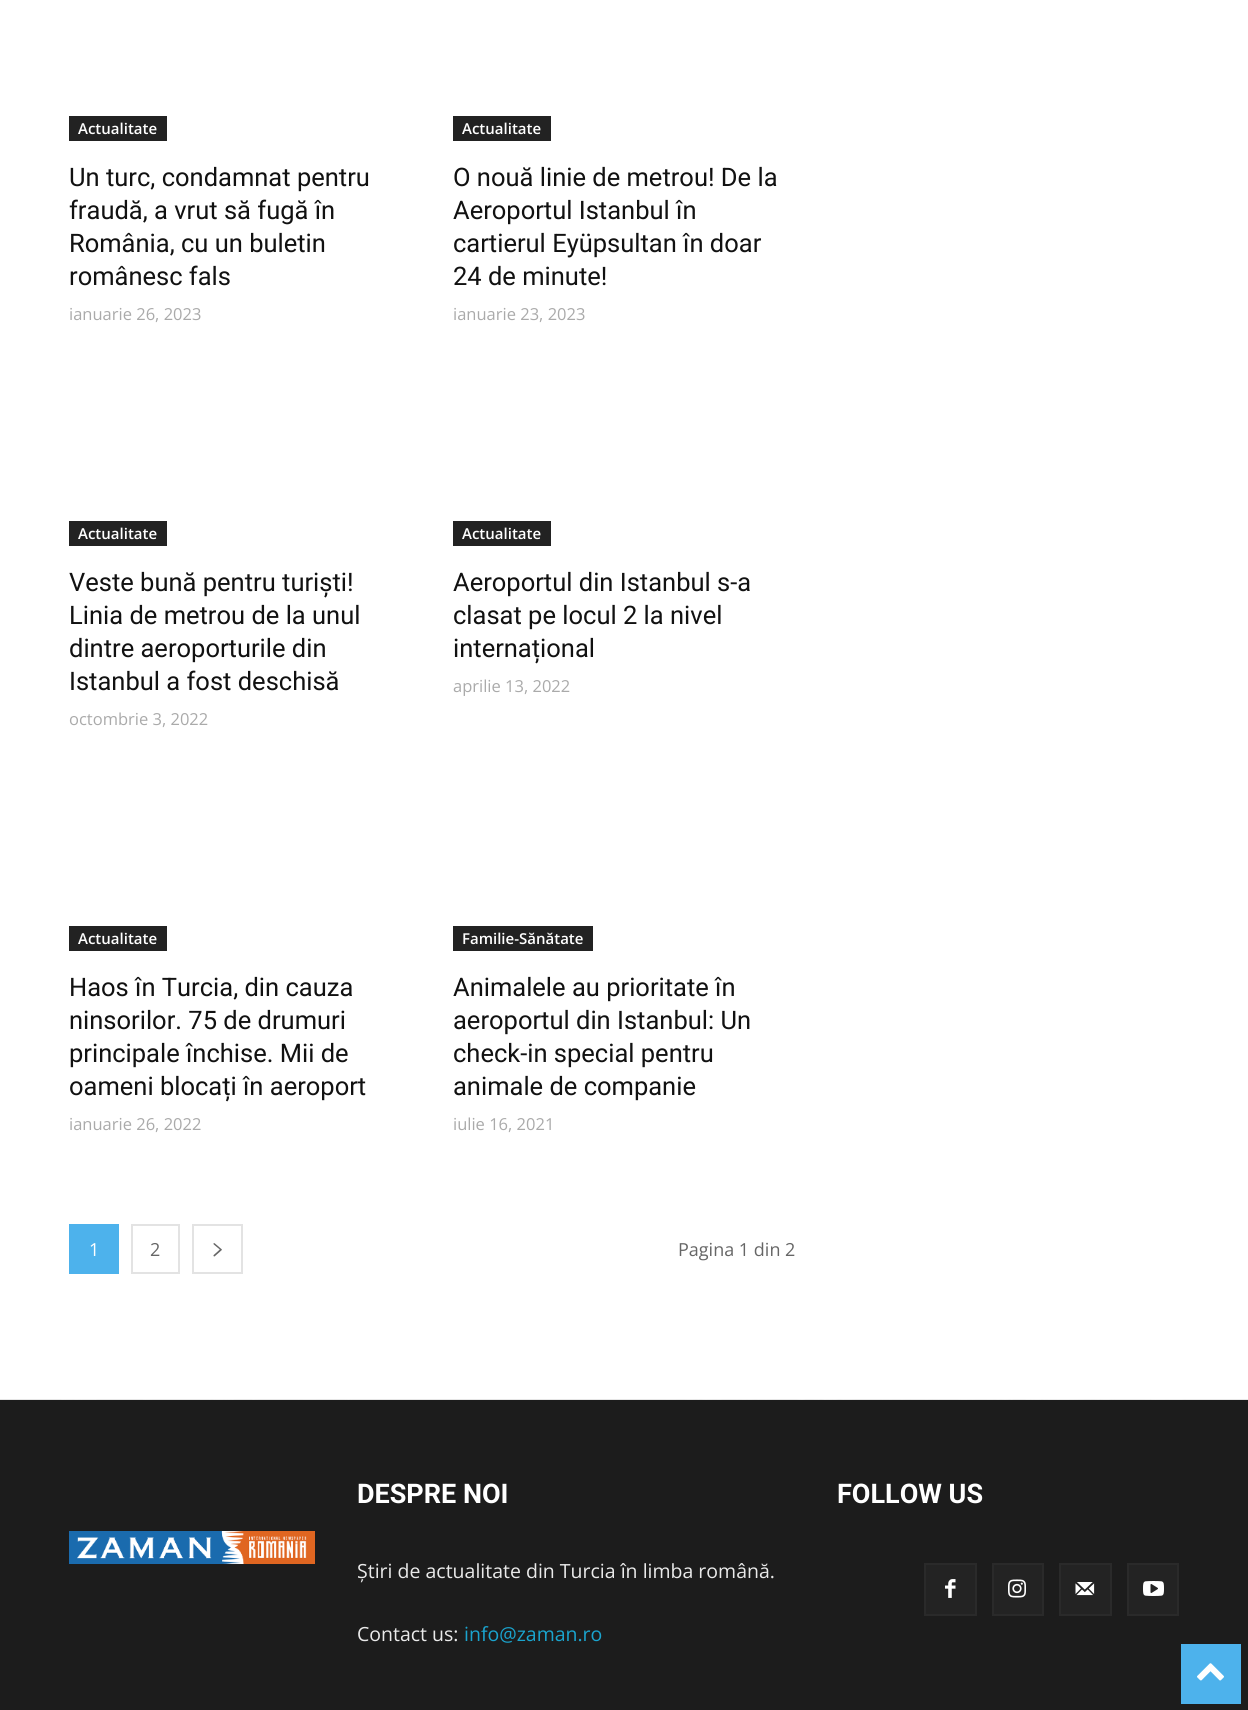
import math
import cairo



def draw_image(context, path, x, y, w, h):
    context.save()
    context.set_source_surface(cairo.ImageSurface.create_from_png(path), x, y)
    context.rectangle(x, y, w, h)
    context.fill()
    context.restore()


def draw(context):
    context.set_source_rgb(1, 1, 1)
    context.paint()
    context.set_source_rgb(34 / 255, 34 / 255, 34 / 255)
    context.rectangle(69, 116, 98, 25)
    context.fill()
    context.rectangle(453, 116, 98, 25)
    context.fill()
    context.rectangle(69, 521, 98, 25)
    context.fill()
    context.rectangle(453, 521, 98, 25)
    context.fill()
    context.rectangle(69, 926, 98, 25)
    context.fill()
    context.rectangle(453, 926, 140, 25)
    context.fill()
    context.set_source_rgb(77 / 255, 178 / 255, 236 / 255)
    context.rectangle(69, 1224, 50, 50)
    context.fill()
    context.rectangle(132, 1225, 47, 48)
    context.set_source_rgb(227 / 255, 227 / 255, 227 / 255)
    context.stroke()
    context.rectangle(193, 1225, 49, 48)
    context.stroke()
    draw_image(context, "images/1.png", 213, 1243, 9, 14)
    draw_image(context, "images/2.png", 0, 1399, 1248, 1)
    context.set_source_rgb(28 / 255, 28 / 255, 28 / 255)
    context.rectangle(0, 1400, 1248, 310)
    context.fill()
    context.set_source_rgb(35 / 255, 35 / 255, 35 / 255)
    context.rectangle(925, 1564, 51, 51)
    context.fill_preserve()
    context.set_source_rgb(42 / 255, 42 / 255, 42 / 255)
    context.stroke()
    draw_image(context, "images/3.png", 945, 1579, 11, 19)
    context.set_source_rgb(35 / 255, 35 / 255, 35 / 255)
    context.rectangle(993, 1564, 50, 51)
    context.fill_preserve()
    context.set_source_rgb(42 / 255, 42 / 255, 42 / 255)
    context.stroke()
    draw_image(context, "images/4.png", 1008, 1579, 18, 19)
    context.set_source_rgb(35 / 255, 35 / 255, 35 / 255)
    context.rectangle(1060, 1564, 51, 51)
    context.fill_preserve()
    context.set_source_rgb(42 / 255, 42 / 255, 42 / 255)
    context.stroke()
    draw_image(context, "images/5.png", 1075, 1582, 20, 14)
    context.set_source_rgb(35 / 255, 35 / 255, 35 / 255)
    context.rectangle(1128, 1564, 50, 51)
    context.fill_preserve()
    context.set_source_rgb(42 / 255, 42 / 255, 42 / 255)
    context.stroke()
    draw_image(context, "images/6.png", 1143, 1581, 21, 15)
    draw_image(context, "images/7.png", 69, 1531, 246, 33)
    context.set_source_rgb(77 / 255, 178 / 255, 236 / 255)
    context.rectangle(1181, 1644, 60, 60)
    context.fill()
    draw_image(context, "images/8.png", 1197, 1663, 27, 18)
    context.select_font_face("Open Sans SemiBold")
    context.set_font_size(15)
    context.set_source_rgb(1, 1, 1)
    context.move_to(78, 134)
    context.show_text("Actualitate")
    context.select_font_face("Roboto")
    context.set_font_size(25.5)
    context.set_source_rgb(17 / 255, 17 / 255, 17 / 255)
    context.move_to(69, 186)
    context.show_text("Un turc, condamnat pentru")
    context.move_to(69, 219)
    context.show_text("fraudă, a vrut să fugă în")
    context.move_to(69, 252)
    context.show_text("România, cu un buletin")
    context.move_to(69, 285)
    context.show_text("românesc fals")
    context.select_font_face("Open Sans")
    context.set_font_size(16.5)
    context.set_source_rgb(170 / 255, 170 / 255, 170 / 255)
    context.move_to(69, 320)
    context.show_text("ianuarie 26, 2023")
    context.select_font_face("Open Sans SemiBold")
    context.set_font_size(15)
    context.set_source_rgb(1, 1, 1)
    context.move_to(462, 134)
    context.show_text("Actualitate")
    context.select_font_face("Roboto")
    context.set_font_size(25.5)
    context.set_source_rgb(17 / 255, 17 / 255, 17 / 255)
    context.move_to(453, 186)
    context.show_text("O nouă linie de metrou! De la")
    context.move_to(453, 219)
    context.show_text("Aeroportul Istanbul în")
    context.move_to(453, 252)
    context.show_text("cartierul Eyüpsultan în doar")
    context.move_to(453, 285)
    context.show_text("24 de minute!")
    context.select_font_face("Open Sans")
    context.set_font_size(16.5)
    context.set_source_rgb(170 / 255, 170 / 255, 170 / 255)
    context.move_to(453, 320)
    context.show_text("ianuarie 23, 2023")
    context.select_font_face("Open Sans SemiBold")
    context.set_font_size(15)
    context.set_source_rgb(1, 1, 1)
    context.move_to(78, 539)
    context.show_text("Actualitate")
    context.select_font_face("Roboto")
    context.set_font_size(25.5)
    context.set_source_rgb(17 / 255, 17 / 255, 17 / 255)
    context.move_to(69, 591)
    context.show_text("Veste bună pentru turiști!")
    context.move_to(69, 624)
    context.show_text("Linia de metrou de la unul")
    context.move_to(69, 657)
    context.show_text("dintre aeroporturile din")
    context.move_to(69, 690)
    context.show_text("Istanbul a fost deschisă")
    context.select_font_face("Open Sans")
    context.set_font_size(16.5)
    context.set_source_rgb(170 / 255, 170 / 255, 170 / 255)
    context.move_to(69, 725)
    context.show_text("octombrie 3, 2022")
    context.select_font_face("Open Sans SemiBold")
    context.set_font_size(15)
    context.set_source_rgb(1, 1, 1)
    context.move_to(462, 539)
    context.show_text("Actualitate")
    context.select_font_face("Roboto")
    context.set_font_size(25.5)
    context.set_source_rgb(17 / 255, 17 / 255, 17 / 255)
    context.move_to(453, 591)
    context.show_text("Aeroportul din Istanbul s-a")
    context.move_to(453, 624)
    context.show_text("clasat pe locul 2 la nivel")
    context.move_to(453, 657)
    context.show_text("internațional")
    context.select_font_face("Open Sans")
    context.set_font_size(16.5)
    context.set_source_rgb(170 / 255, 170 / 255, 170 / 255)
    context.move_to(453, 692)
    context.show_text("aprilie 13, 2022")
    context.select_font_face("Open Sans SemiBold")
    context.set_font_size(15)
    context.set_source_rgb(1, 1, 1)
    context.move_to(78, 944)
    context.show_text("Actualitate")
    context.select_font_face("Roboto")
    context.set_font_size(25.5)
    context.set_source_rgb(17 / 255, 17 / 255, 17 / 255)
    context.move_to(69, 996)
    context.show_text("Haos în Turcia, din cauza")
    context.move_to(69, 1029)
    context.show_text("ninsorilor. 75 de drumuri")
    context.move_to(69, 1062)
    context.show_text("principale închise. Mii de")
    context.move_to(69, 1095)
    context.show_text("oameni blocați în aeroport")
    context.select_font_face("Open Sans")
    context.set_font_size(16.5)
    context.set_source_rgb(170 / 255, 170 / 255, 170 / 255)
    context.move_to(69, 1130)
    context.show_text("ianuarie 26, 2022")
    context.select_font_face("Open Sans SemiBold")
    context.set_font_size(15)
    context.set_source_rgb(1, 1, 1)
    context.move_to(462, 944)
    context.show_text("Familie-Sănătate")
    context.select_font_face("Roboto")
    context.set_font_size(25.5)
    context.set_source_rgb(17 / 255, 17 / 255, 17 / 255)
    context.move_to(453, 996)
    context.show_text("Animalele au prioritate în")
    context.move_to(453, 1029)
    context.show_text("aeroportul din Istanbul: Un")
    context.move_to(453, 1062)
    context.show_text("check-in special pentru")
    context.move_to(453, 1095)
    context.show_text("animale de companie")
    context.select_font_face("Open Sans")
    context.set_font_size(16.5)
    context.set_source_rgb(170 / 255, 170 / 255, 170 / 255)
    context.move_to(453, 1130)
    context.show_text("iulie 16, 2021")
    context.set_font_size(18)
    context.set_source_rgb(1, 1, 1)
    context.move_to(89, 1256)
    context.show_text("1")
    context.set_source_rgb(102 / 255, 102 / 255, 102 / 255)
    context.move_to(150, 1256)
    context.show_text("2")
    context.move_to(678, 1256)
    context.show_text("Pagina 1 din 2")
    context.select_font_face("Roboto", cairo.FontSlant.NORMAL, cairo.FontWeight.BOLD)
    context.set_font_size(27)
    context.set_source_rgb(1, 1, 1)
    context.move_to(357, 1503)
    context.show_text("DESPRE NOI")
    context.select_font_face("Open Sans")
    context.set_font_size(19.5)
    context.set_source_rgb(234 / 255, 234 / 255, 234 / 255)
    context.move_to(357, 1578)
    context.show_text("Știri de actualitate din Turcia în limba română.")
    context.move_to(357, 1641)
    context.show_text("Contact us:")
    context.set_source_rgb(26 / 255, 164 / 255, 206 / 255)
    context.move_to(464, 1641)
    context.show_text("info@zaman.ro")
    context.select_font_face("Roboto", cairo.FontSlant.NORMAL, cairo.FontWeight.BOLD)
    context.set_font_size(27)
    context.set_source_rgb(1, 1, 1)
    context.move_to(837, 1503)
    context.show_text("FOLLOW US")


surface = cairo.ImageSurface(cairo.Format.RGB24, 1248, 1710)
context = cairo.Context(surface)
options = cairo.FontOptions()
options.set_hint_metrics(cairo.HintMetrics.OFF)
options.set_hint_style(cairo.HintStyle.NONE)
context.set_font_options(options)
context.set_miter_limit(4)
draw(context)
surface.write_to_png("out.png")
